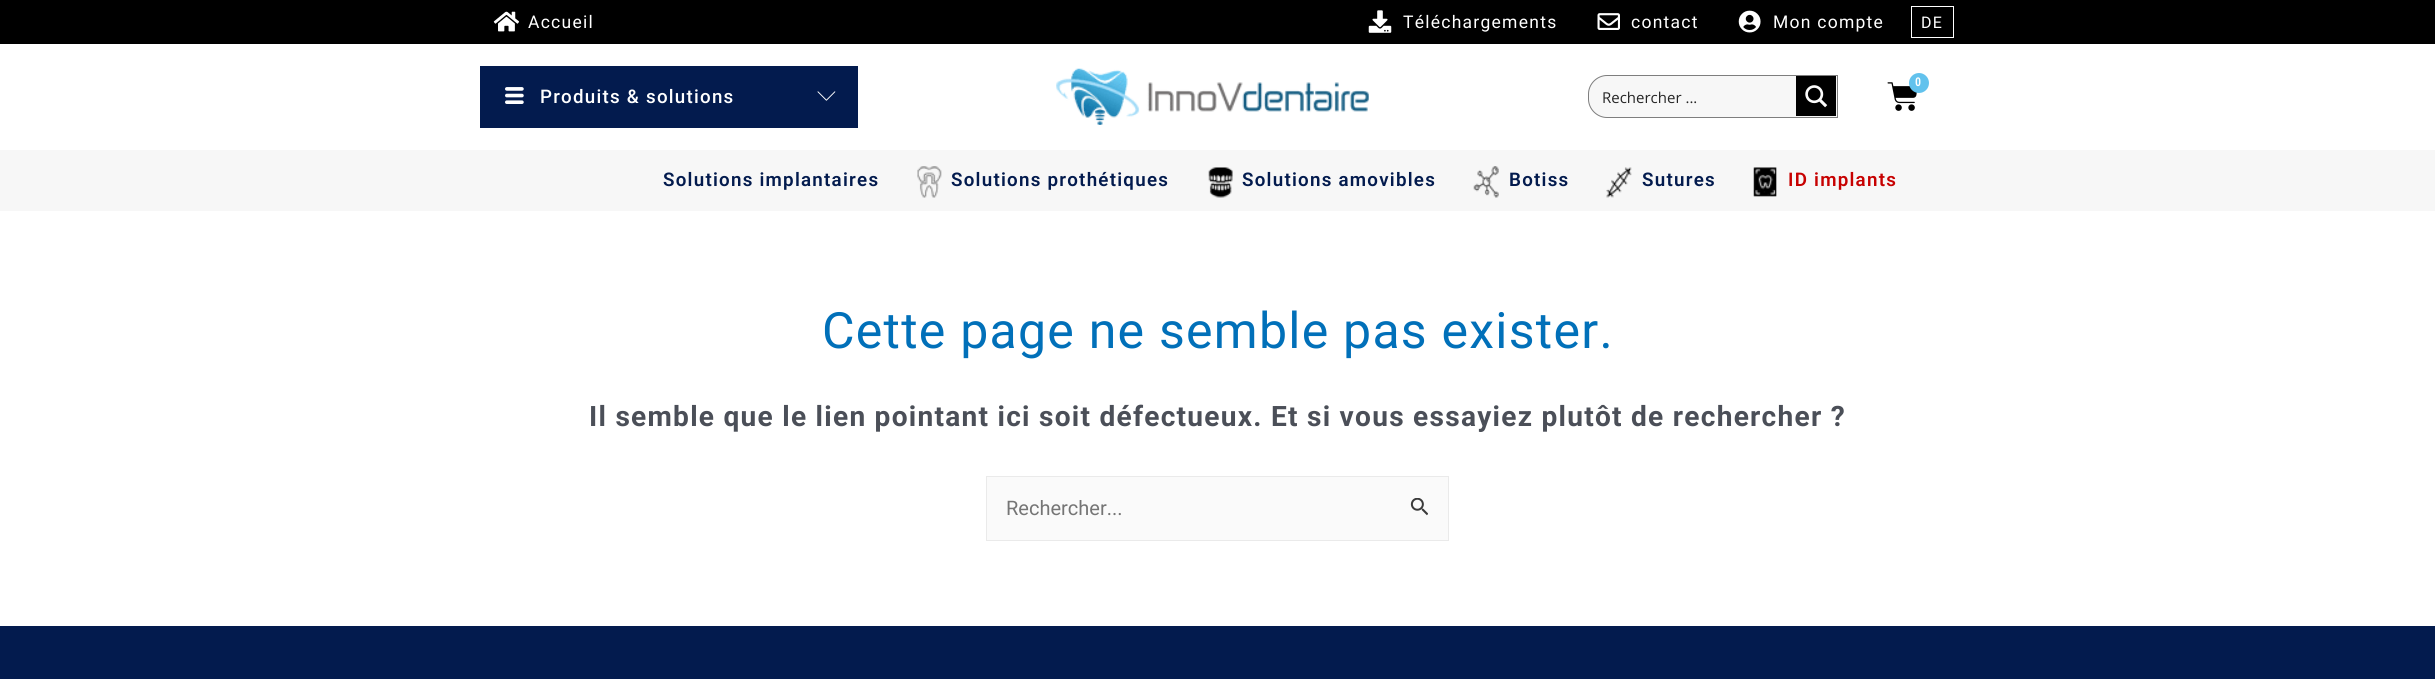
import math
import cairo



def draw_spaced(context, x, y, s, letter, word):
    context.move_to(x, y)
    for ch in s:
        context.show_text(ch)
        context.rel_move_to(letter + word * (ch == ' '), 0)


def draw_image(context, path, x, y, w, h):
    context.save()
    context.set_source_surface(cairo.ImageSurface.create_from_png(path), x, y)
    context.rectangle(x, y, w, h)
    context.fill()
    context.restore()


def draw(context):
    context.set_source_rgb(1, 1, 1)
    context.paint()
    context.set_source_rgb(0, 0, 0)
    context.rectangle(0, 0, 2435, 44)
    context.fill()
    draw_image(context, "images/1.png", 493, 11, 27, 21)
    draw_image(context, "images/2.png", 1368, 10, 24, 23)
    draw_image(context, "images/3.png", 1597, 13, 23, 17)
    draw_image(context, "images/4.png", 1738, 10, 23, 23)
    context.rectangle(1911.5, 6.5, 42, 31)
    context.set_source_rgb(1, 1, 1)
    context.set_line_width(1)
    context.stroke()
    context.set_source_rgb(3 / 255, 27 / 255, 78 / 255)
    context.rectangle(480, 66, 378, 62)
    context.fill()
    draw_image(context, "images/5.png", 505, 87, 19, 17)
    draw_image(context, "images/6.png", 817, 91, 19, 10)
    draw_image(context, "images/7.png", 1056, 68, 313, 57)
    draw_image(context, "images/8.png", 1887, 82, 30, 29)
    context.set_source_rgb(98 / 255, 194 / 255, 237 / 255)
    context.arc(1919, 83, 10, 0, 2 * math.pi)
    context.fill()
    context.set_source_rgb(247 / 255, 247 / 255, 247 / 255)
    context.new_path()
    context.move_to(1607, 75)
    context.line_to(1838, 75)
    context.line_to(1838, 118)
    context.line_to(1607, 118)
    context.curve_to(1596.5, 118, 1588, 109.5, 1588, 99)
    context.line_to(1588, 94)
    context.curve_to(1588, 83.5, 1596.5, 75, 1607, 75)
    context.close_path()
    context.fill()
    context.new_path()
    context.move_to(1607, 75.5)
    context.line_to(1837.5, 75.5)
    context.line_to(1837.5, 117.5)
    context.line_to(1607, 117.5)
    context.curve_to(1597, 117.5, 1588.5, 109, 1588.5, 99)
    context.line_to(1588.5, 94)
    context.curve_to(1588.5, 84, 1597, 75.5, 1607, 75.5)
    context.close_path()
    context.set_source_rgba(0, 0, 0, 0.49)
    context.stroke()
    context.set_source_rgb(0, 0, 0)
    context.rectangle(1796, 76, 40, 40)
    context.fill()
    draw_image(context, "images/9.png", 1805, 85, 23, 23)
    context.set_source_rgb(247 / 255, 247 / 255, 247 / 255)
    context.rectangle(0, 150, 2435, 61)
    context.fill()
    draw_image(context, "images/10.png", 917, 166, 25, 32)
    draw_image(context, "images/11.png", 1208, 167, 25, 31)
    draw_image(context, "images/12.png", 1473, 166, 26, 32)
    draw_image(context, "images/13.png", 1606, 167, 26, 31)
    draw_image(context, "images/14.png", 1753, 167, 24, 30)
    context.set_source_rgb(250 / 255, 250 / 255, 250 / 255)
    context.rectangle(986.5, 476.5, 462, 64)
    context.fill_preserve()
    context.set_source_rgb(234 / 255, 234 / 255, 234 / 255)
    context.stroke()
    draw_image(context, "images/15.png", 1410, 498, 18, 18)
    gradient = cairo.LinearGradient(1218, 626, 1218, 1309)
    gradient.add_color_stop_rgba(0.24, 3 / 255, 27 / 255, 78 / 255, 1)
    gradient.add_color_stop_rgba(1, 13 / 255, 204 / 255, 248 / 255, 1)
    context.set_source(gradient)
    context.rectangle(0, 626, 2435, 53)
    context.fill()
    context.select_font_face("Roboto")
    context.set_font_size(17.5)
    context.set_source_rgb(1, 1, 1)
    draw_spaced(context, 528, 28, "Accueil", 1.25, 0)
    draw_spaced(context, 1403, 28, "Téléchargements", 1.25, 0)
    draw_spaced(context, 1631, 28, "contact", 1.25, 0)
    draw_spaced(context, 1773, 28, "Mon compte", 1.25, 0)
    context.set_font_size(16)
    draw_spaced(context, 1921, 28, "DE", 1.25, 0)
    context.select_font_face("Roboto Medium")
    context.set_font_size(18.75)
    draw_spaced(context, 540, 103, "Produits & solutions", 1.25, 0)
    context.select_font_face("Roboto Condensed SemiBold")
    context.set_font_size(12)
    draw_spaced(context, 1915, 86, "0", 1.25, 0)
    context.select_font_face("Open Sans")
    context.set_font_size(15)
    context.set_source_rgb(37 / 255, 37 / 255, 37 / 255)
    context.move_to(1602, 103)
    context.show_text("Rechercher ...")
    context.select_font_face("Roboto SemiBold")
    context.set_font_size(18.75)
    context.set_source_rgb(3 / 255, 27 / 255, 78 / 255)
    draw_spaced(context, 663, 186, "Solutions implantaires", 1.25, 0)
    draw_spaced(context, 951, 186, "Solutions prothétiques", 1.25, 0)
    draw_spaced(context, 1242, 186, "Solutions amovibles", 1.25, 0)
    draw_spaced(context, 1509, 186, "Botiss", 1.25, 0)
    draw_spaced(context, 1642, 186, "Sutures", 1.25, 0)
    context.set_source_rgb(199 / 255, 1 / 255, 1 / 255)
    draw_spaced(context, 1788, 186, "ID implants", 1.25, 0)
    context.select_font_face("Roboto")
    context.set_font_size(50)
    context.set_source_rgb(1 / 255, 112 / 255, 185 / 255)
    draw_spaced(context, 822, 348, "Cette page ne semble pas exister.", 1.25, 0)
    context.select_font_face("Roboto", cairo.FontSlant.NORMAL, cairo.FontWeight.BOLD)
    context.set_font_size(28.1)
    context.set_source_rgb(75 / 255, 79 / 255, 88 / 255)
    draw_spaced(context, 589, 426, "Il semble que le lien pointant ici soit défectueux. Et si vous essayiez plutôt de rechercher ?", 1.25, 0)
    context.select_font_face("Roboto")
    context.set_font_size(20)
    context.set_source_rgb(117 / 255, 117 / 255, 117 / 255)
    context.move_to(1006, 515)
    context.show_text("Rechercher...")


surface = cairo.ImageSurface(cairo.Format.RGB24, 2435, 679)
context = cairo.Context(surface)
options = cairo.FontOptions()
options.set_hint_metrics(cairo.HintMetrics.OFF)
options.set_hint_style(cairo.HintStyle.NONE)
context.set_font_options(options)
context.set_miter_limit(4)
draw(context)
surface.write_to_png("out.png")
